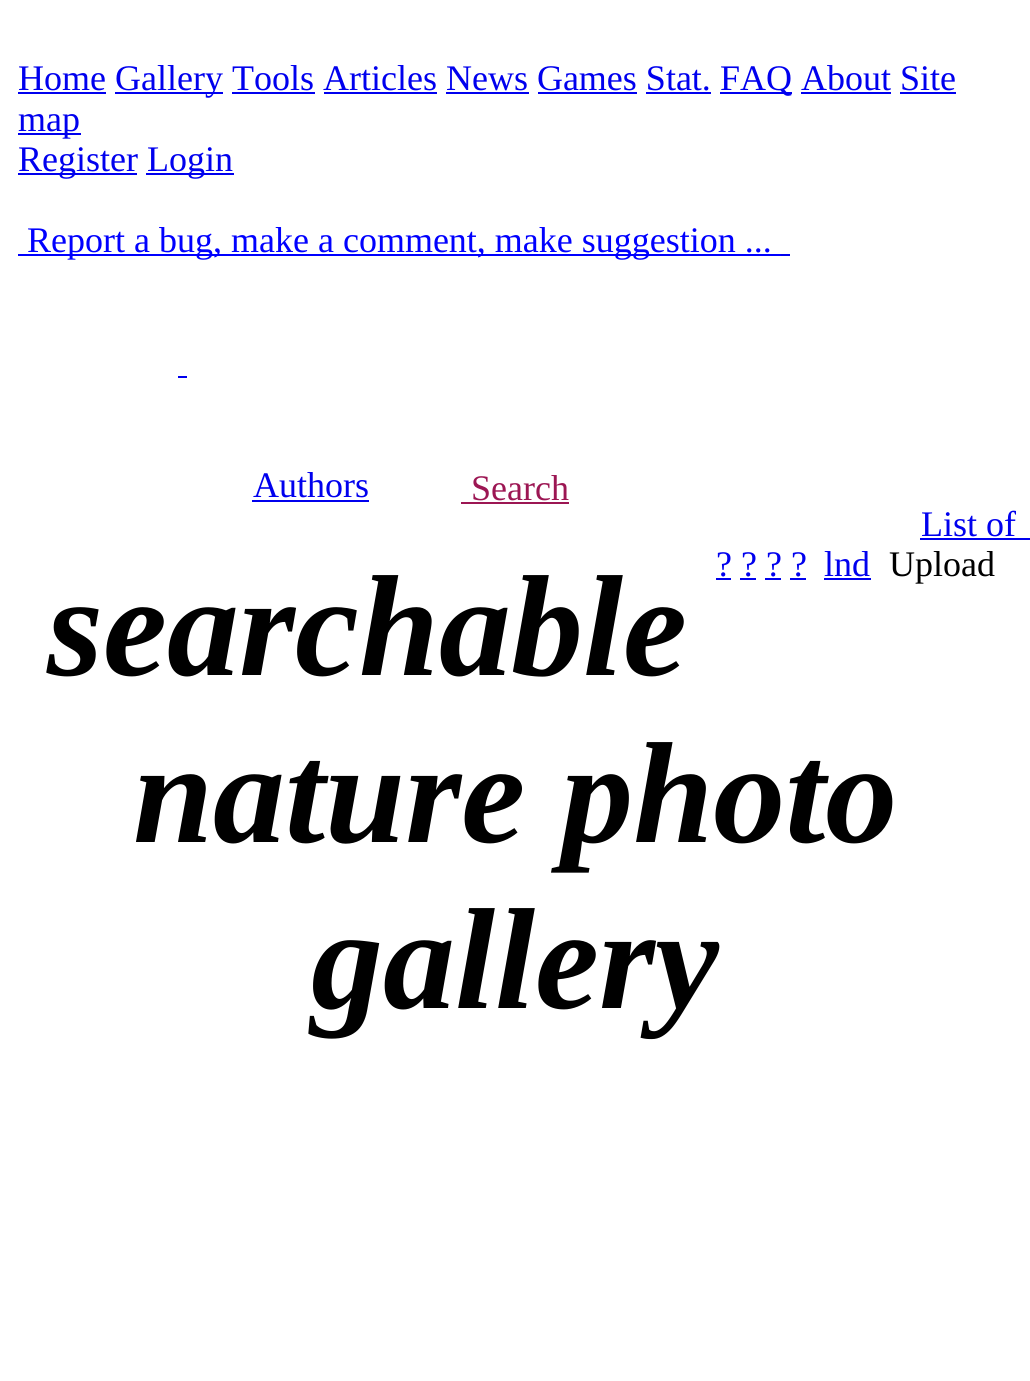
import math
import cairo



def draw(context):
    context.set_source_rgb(1, 1, 1)
    context.paint()
    context.set_source_rgb(0, 0, 238 / 255)
    context.rectangle(18, 92, 88, 2)
    context.fill()
    context.rectangle(115, 92, 108, 2)
    context.fill()
    context.rectangle(720, 92, 72, 2)
    context.fill()
    context.rectangle(232, 92, 83, 2)
    context.fill()
    context.rectangle(324, 92, 113, 2)
    context.fill()
    context.rectangle(446, 92, 83, 2)
    context.fill()
    context.rectangle(538, 92, 99, 2)
    context.fill()
    context.rectangle(646, 92, 65, 2)
    context.fill()
    context.rectangle(801, 92, 90, 2)
    context.fill()
    context.rectangle(900, 92, 56, 2)
    context.fill()
    context.rectangle(18, 133, 63, 2)
    context.fill()
    context.rectangle(18, 173, 119, 2)
    context.fill()
    context.rectangle(146, 173, 88, 2)
    context.fill()
    context.set_source_rgb(0, 0, 1)
    context.rectangle(18, 254, 763, 2)
    context.fill()
    context.set_source_rgb(0, 0, 238 / 255)
    context.rectangle(781, 254, 9, 2)
    context.fill()
    context.rectangle(178, 376, 9, 2)
    context.fill()
    context.rectangle(252, 500, 117, 2)
    context.fill()
    context.set_source_rgb(156 / 255, 22 / 255, 83 / 255)
    context.rectangle(461, 502, 108, 2)
    context.fill()
    context.set_source_rgb(0, 0, 238 / 255)
    context.rectangle(920, 538, 110, 2)
    context.fill()
    context.rectangle(716, 578, 15, 2)
    context.fill()
    context.rectangle(824, 578, 47, 2)
    context.fill()
    context.rectangle(740, 578, 16, 2)
    context.fill()
    context.rectangle(765, 578, 16, 2)
    context.fill()
    context.rectangle(790, 578, 16, 2)
    context.fill()
    context.select_font_face("Liberation Serif")
    context.set_font_size(36)
    context.move_to(18, 90)
    context.show_text("Home")
    context.move_to(115, 90)
    context.show_text("Gallery Tools Articles News Games Stat.")
    context.move_to(720, 90)
    context.show_text("FAQ About Site")
    context.move_to(18, 131)
    context.show_text("map")
    context.move_to(18, 171)
    context.show_text("Register")
    context.move_to(147, 171)
    context.show_text("Login")
    context.set_source_rgb(0, 0, 1)
    context.move_to(27, 252)
    context.show_text("Report a bug, make a comment, make suggestion ...")
    context.set_source_rgb(0, 0, 238 / 255)
    context.move_to(253, 497)
    context.show_text("Authors")
    context.set_source_rgb(156 / 255, 22 / 255, 83 / 255)
    context.move_to(471, 500)
    context.show_text("Search")
    context.set_source_rgb(0, 0, 238 / 255)
    context.move_to(921, 536)
    context.show_text("List of")
    context.move_to(716, 576)
    context.show_text("? ? ? ?")
    context.move_to(824, 576)
    context.show_text("lnd")
    context.set_source_rgb(0, 0, 0)
    context.move_to(889, 576)
    context.show_text("Upload")
    context.select_font_face("Liberation Serif", cairo.FontSlant.ITALIC, cairo.FontWeight.BOLD)
    context.set_font_size(144)
    context.move_to(47, 675)
    context.show_text("searchable")
    context.move_to(133, 842)
    context.show_text("nature photo")
    context.move_to(311, 1008)
    context.show_text("gallery")


surface = cairo.ImageSurface(cairo.Format.RGB24, 1030, 1381)
context = cairo.Context(surface)
options = cairo.FontOptions()
options.set_hint_metrics(cairo.HintMetrics.OFF)
options.set_hint_style(cairo.HintStyle.NONE)
context.set_font_options(options)
context.set_miter_limit(4)
draw(context)
surface.write_to_png("out.png")
